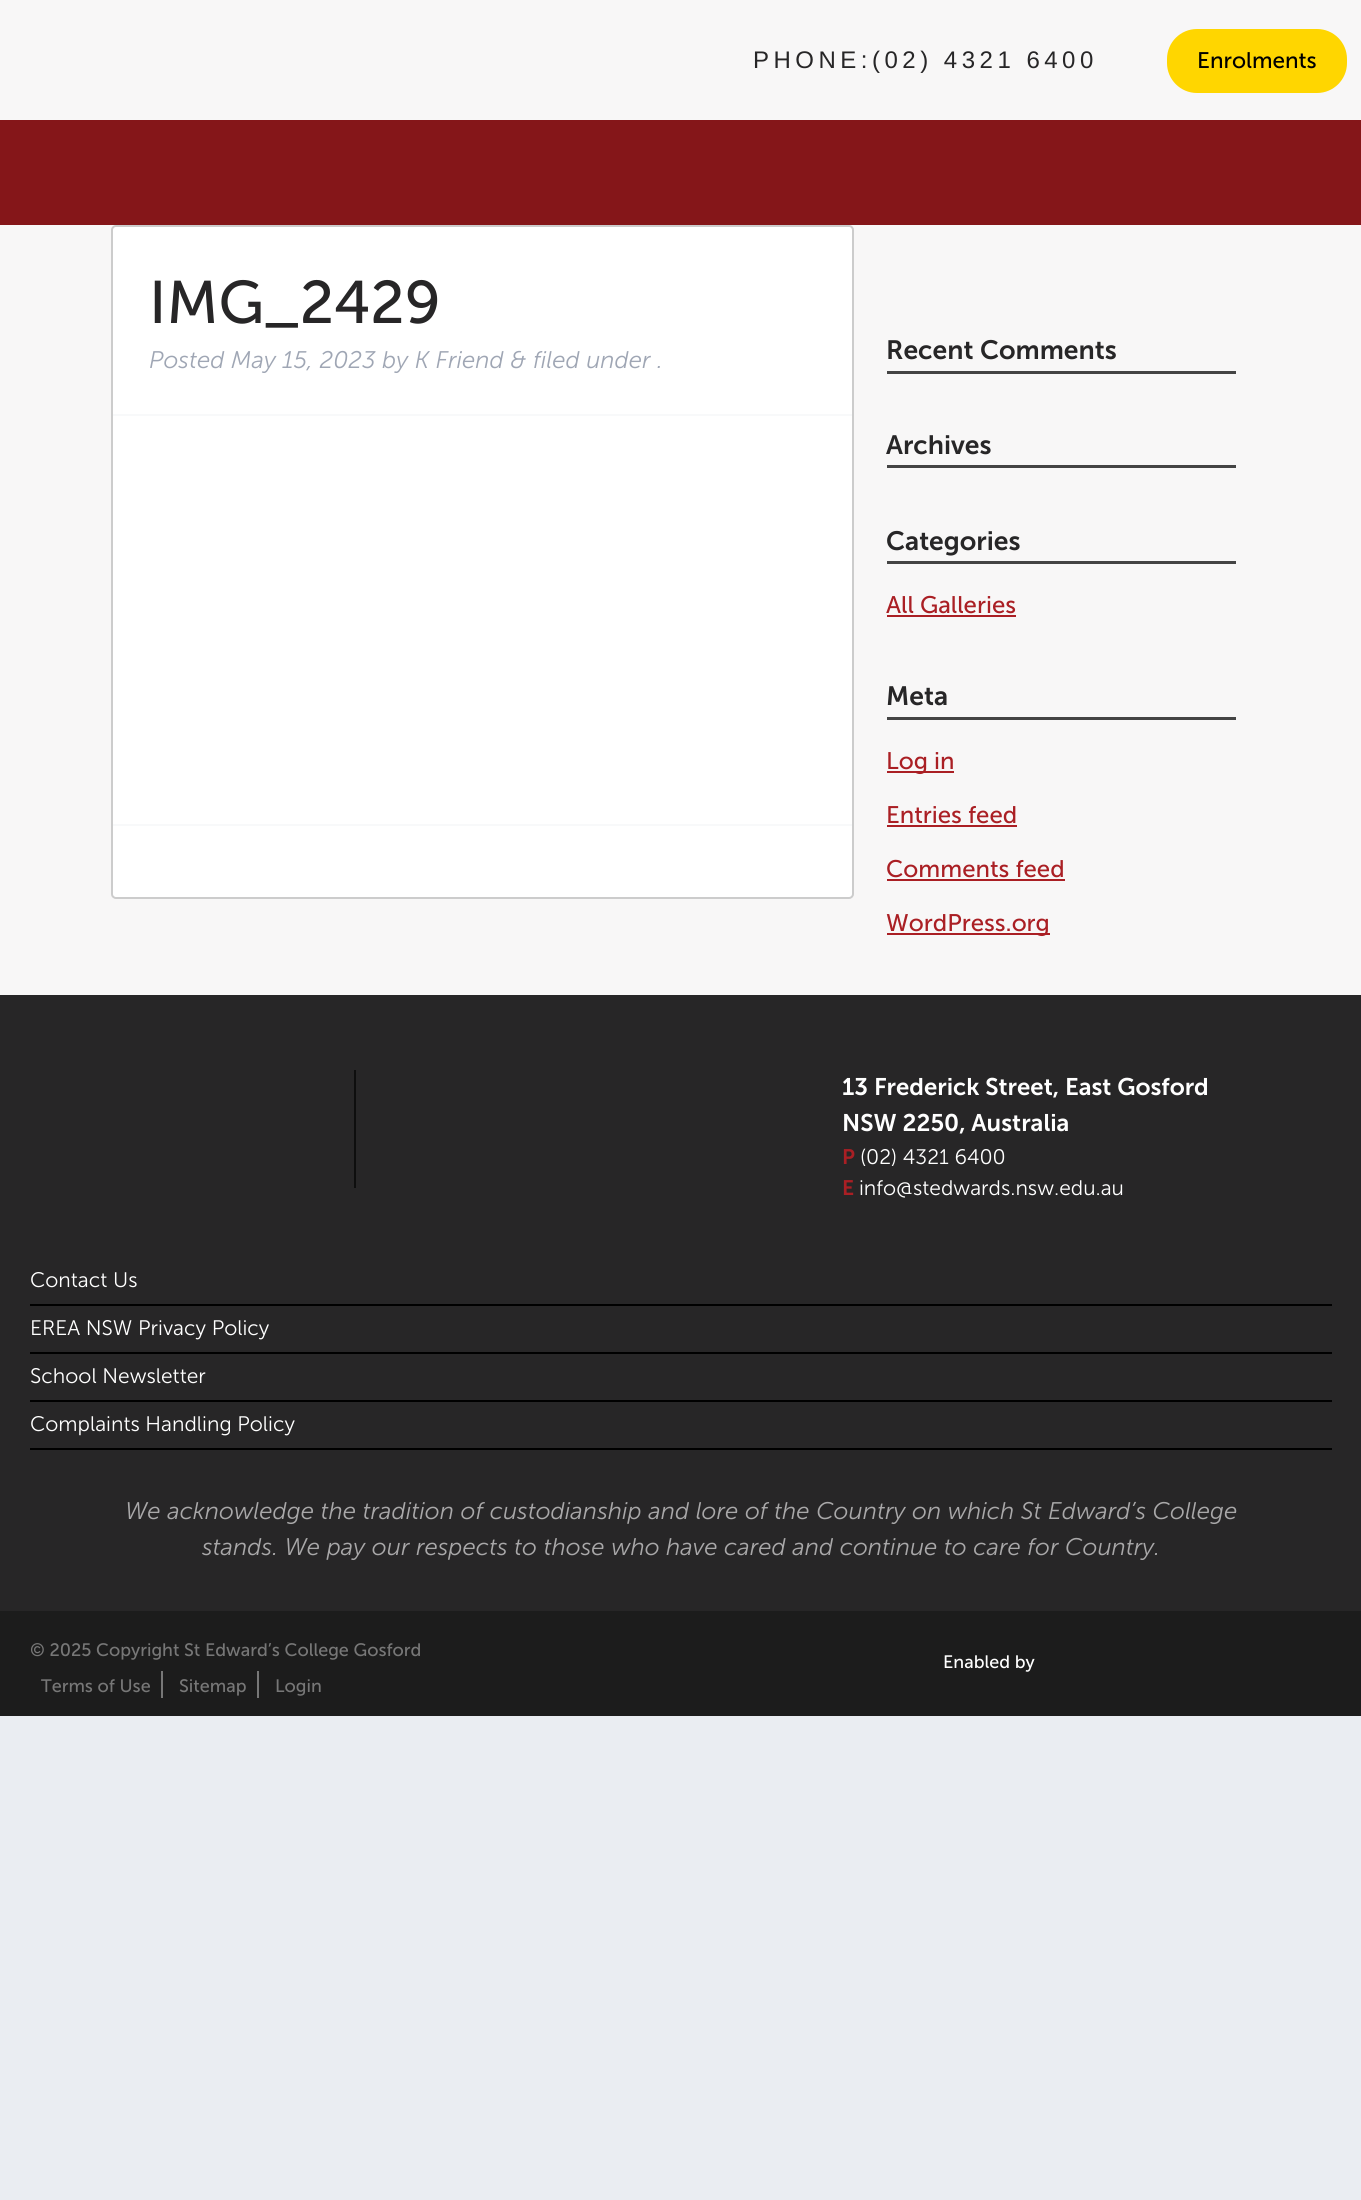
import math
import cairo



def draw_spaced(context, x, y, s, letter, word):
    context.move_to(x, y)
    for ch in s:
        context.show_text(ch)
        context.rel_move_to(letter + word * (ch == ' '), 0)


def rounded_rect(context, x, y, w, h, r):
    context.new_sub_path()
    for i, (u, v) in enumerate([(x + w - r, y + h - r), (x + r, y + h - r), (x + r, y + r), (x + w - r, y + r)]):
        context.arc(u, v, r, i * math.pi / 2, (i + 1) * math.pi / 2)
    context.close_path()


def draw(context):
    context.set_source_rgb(234 / 255, 237 / 255, 242 / 255)
    context.paint()
    context.set_source_rgb(248 / 255, 247 / 255, 247 / 255)
    context.rectangle(0, 0, 1361, 995)
    context.fill()
    context.set_source_rgb(1, 214 / 255, 0)
    rounded_rect(context, 1167, 29, 180, 64, 30)
    context.fill()
    context.set_source_rgb(133 / 255, 22 / 255, 25 / 255)
    context.rectangle(0, 120, 1361, 105)
    context.fill()
    context.set_source_rgb(1, 1, 1)
    rounded_rect(context, 112, 226, 741, 672, 4)
    context.fill_preserve()
    context.set_source_rgb(204 / 255, 204 / 255, 204 / 255)
    context.stroke()
    context.set_source_rgb(248 / 255, 249 / 255, 250 / 255)
    context.rectangle(113, 414, 739, 2)
    context.fill()
    context.rectangle(113, 824, 739, 2)
    context.fill()
    context.set_source_rgb(68 / 255, 68 / 255, 68 / 255)
    context.rectangle(887, 371, 349, 3)
    context.fill()
    context.rectangle(887, 465, 349, 3)
    context.fill()
    context.rectangle(887, 561, 349, 3)
    context.fill()
    context.set_source_rgb(170 / 255, 31 / 255, 36 / 255)
    context.rectangle(887, 615, 129, 2)
    context.fill()
    context.set_source_rgb(68 / 255, 68 / 255, 68 / 255)
    context.rectangle(887, 717, 349, 3)
    context.fill()
    context.set_source_rgb(170 / 255, 31 / 255, 36 / 255)
    context.rectangle(887, 771, 67, 2)
    context.fill()
    context.rectangle(887, 825, 130, 2)
    context.fill()
    context.rectangle(887, 879, 178, 2)
    context.fill()
    context.rectangle(887, 933, 163, 2)
    context.fill()
    context.set_source_rgb(39 / 255, 38 / 255, 39 / 255)
    context.rectangle(0, 995, 1361, 616)
    context.fill()
    context.set_source_rgb(14 / 255, 14 / 255, 14 / 255)
    context.rectangle(354, 1070, 2, 118)
    context.fill()
    context.set_source_rgb(0, 0, 0)
    context.rectangle(30, 1304, 1302, 2)
    context.fill()
    context.rectangle(30, 1352, 1302, 2)
    context.fill()
    context.rectangle(30, 1400, 1302, 2)
    context.fill()
    context.rectangle(30, 1448, 1302, 2)
    context.fill()
    context.set_source_rgb(28 / 255, 28 / 255, 28 / 255)
    context.rectangle(0, 1611, 1361, 105)
    context.fill()
    context.set_source_rgb(119 / 255, 119 / 255, 119 / 255)
    context.rectangle(161, 1671, 2, 27)
    context.fill()
    context.rectangle(257, 1671, 2, 27)
    context.fill()
    context.select_font_face("Liberation Sans")
    context.set_font_size(24)
    context.set_source_rgb(39 / 255, 38 / 255, 39 / 255)
    draw_spaced(context, 753, 68, "PHONE:(02) 4321 6400", 4.5, 0)
    context.select_font_face("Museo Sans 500")
    context.set_font_size(22.5)
    context.set_source_rgb(0, 0, 0)
    context.move_to(1197, 68)
    context.show_text("Enrolments")
    context.set_font_size(60)
    context.set_source_rgb(39 / 255, 38 / 255, 39 / 255)
    context.move_to(149, 323)
    context.show_text("IMG_2429")
    context.select_font_face("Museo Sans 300 Light", cairo.FontSlant.ITALIC)
    context.set_font_size(24)
    context.set_source_rgb(159 / 255, 166 / 255, 180 / 255)
    context.move_to(149, 368)
    context.show_text("Posted May 15, 2023 by K Friend & filed under .")
    context.select_font_face("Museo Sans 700 SemiBold")
    context.set_font_size(26.5)
    context.set_source_rgb(39 / 255, 38 / 255, 39 / 255)
    context.move_to(886, 359)
    context.show_text("Recent Comments")
    context.move_to(886, 454)
    context.show_text("Archives")
    context.move_to(886, 550)
    context.show_text("Categories")
    context.select_font_face("Museo Sans 500")
    context.set_font_size(24)
    context.set_source_rgb(170 / 255, 31 / 255, 36 / 255)
    context.move_to(886, 613)
    context.show_text("All Galleries")
    context.select_font_face("Museo Sans 700 SemiBold")
    context.set_font_size(26.5)
    context.set_source_rgb(39 / 255, 38 / 255, 39 / 255)
    context.move_to(886, 705)
    context.show_text("Meta")
    context.select_font_face("Museo Sans 500")
    context.set_font_size(24)
    context.set_source_rgb(170 / 255, 31 / 255, 36 / 255)
    context.move_to(886, 769)
    context.show_text("Log in")
    context.move_to(886, 823)
    context.show_text("Entries feed")
    context.move_to(886, 877)
    context.show_text("Comments feed")
    context.move_to(886, 931)
    context.show_text("WordPress.org")
    context.select_font_face("Museo Sans 700 SemiBold")
    context.set_source_rgb(1, 1, 1)
    context.move_to(842, 1095)
    context.show_text("13 Frederick Street, East Gosford")
    context.move_to(842, 1131)
    context.show_text("NSW 2250, Australia")
    context.set_font_size(21)
    context.set_source_rgb(170 / 255, 31 / 255, 36 / 255)
    context.move_to(842, 1164)
    context.show_text("P")
    context.select_font_face("Museo Sans 300 Light")
    context.set_source_rgb(1, 1, 1)
    context.move_to(860, 1164)
    context.show_text("(02) 4321 6400")
    context.select_font_face("Museo Sans 700 SemiBold")
    context.set_source_rgb(170 / 255, 31 / 255, 36 / 255)
    context.move_to(842, 1195)
    context.show_text("E")
    context.select_font_face("Museo Sans 300 Light")
    context.set_source_rgb(1, 1, 1)
    context.move_to(859, 1195)
    context.show_text("info@stedwards.nsw.edu.au")
    context.move_to(30, 1287)
    context.show_text("Contact Us")
    context.move_to(30, 1335)
    context.show_text("EREA NSW Privacy Policy")
    context.move_to(30, 1383)
    context.show_text("School Newsletter")
    context.move_to(30, 1431)
    context.show_text("Complaints Handling Policy")
    context.select_font_face("Museo Sans 300 Light", cairo.FontSlant.ITALIC)
    context.set_font_size(24)
    context.set_source_rgb(169 / 255, 168 / 255, 169 / 255)
    context.move_to(125, 1519)
    context.show_text("We acknowledge the tradition of custodianship and lore of the Country on which St Edward’s College")
    context.move_to(202, 1555)
    context.show_text("stands. We pay our respects to those who have cared and continue to care for Country.")
    context.select_font_face("Museo Sans 500")
    context.set_font_size(18)
    context.set_source_rgb(119 / 255, 119 / 255, 119 / 255)
    context.move_to(30, 1656)
    context.show_text("© 2025 Copyright St Edward’s College Gosford")
    context.move_to(41, 1692)
    context.show_text("Terms of Use")
    context.move_to(179, 1692)
    context.show_text("Sitemap")
    context.move_to(275, 1692)
    context.show_text("Login")
    context.set_source_rgb(1, 1, 1)
    context.move_to(943, 1668)
    context.show_text("Enabled by")


surface = cairo.ImageSurface(cairo.Format.RGB24, 1361, 2200)
context = cairo.Context(surface)
options = cairo.FontOptions()
options.set_hint_metrics(cairo.HintMetrics.OFF)
options.set_hint_style(cairo.HintStyle.NONE)
context.set_font_options(options)
context.set_miter_limit(4)
draw(context)
surface.write_to_png("out.png")
